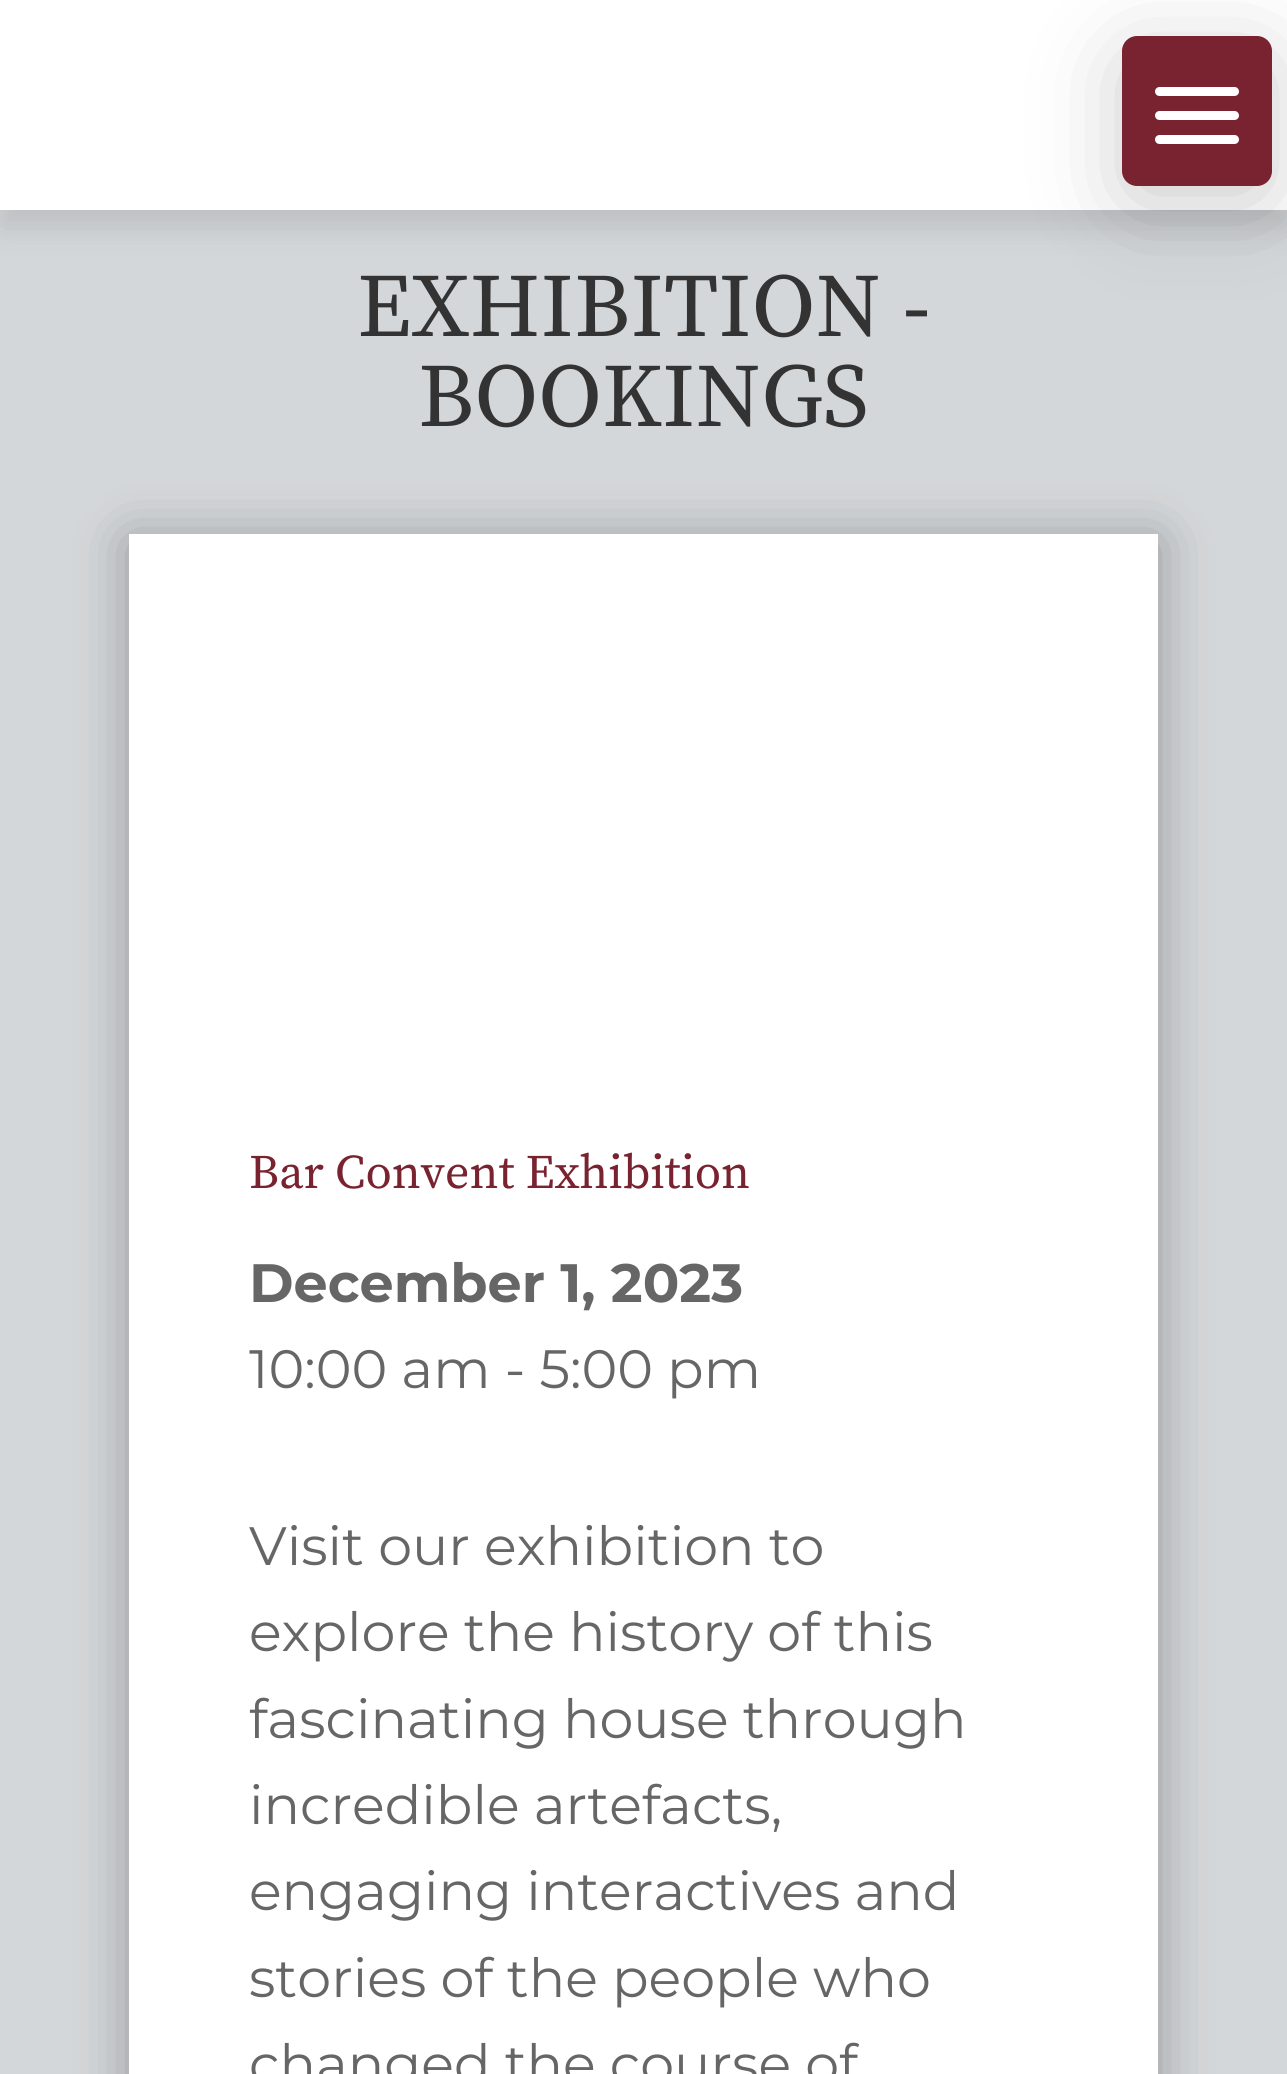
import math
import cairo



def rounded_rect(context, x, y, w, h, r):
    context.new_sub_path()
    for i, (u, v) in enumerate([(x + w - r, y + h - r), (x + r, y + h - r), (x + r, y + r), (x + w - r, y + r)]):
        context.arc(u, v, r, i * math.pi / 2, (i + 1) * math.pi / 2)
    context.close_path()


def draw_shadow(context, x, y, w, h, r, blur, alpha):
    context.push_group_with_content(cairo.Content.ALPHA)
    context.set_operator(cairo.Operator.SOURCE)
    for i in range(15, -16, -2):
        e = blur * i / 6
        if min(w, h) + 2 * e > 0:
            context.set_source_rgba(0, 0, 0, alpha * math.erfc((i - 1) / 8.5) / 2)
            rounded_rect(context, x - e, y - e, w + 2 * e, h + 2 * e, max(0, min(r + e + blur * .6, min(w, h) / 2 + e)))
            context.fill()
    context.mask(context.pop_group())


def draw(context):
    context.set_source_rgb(212 / 255, 215 / 255, 217 / 255)
    context.paint()
    context.set_source_rgb(0, 0, 0)
    draw_shadow(context, 0, 18, 1287, 210, 0, 15, 0.11)
    context.set_source_rgb(1, 1, 1)
    context.rectangle(0, 0, 1287, 210)
    context.fill()
    context.set_source_rgb(0, 0, 0)
    draw_shadow(context, 1122, 54, 150, 150, 15, 45, 0.2)
    context.set_source_rgb(120 / 255, 35 / 255, 47 / 255)
    rounded_rect(context, 1122, 36, 150, 150, 15)
    context.fill()
    context.set_source_rgb(1, 1, 1)
    rounded_rect(context, 1155, 111, 84, 9, 4.5)
    context.fill()
    rounded_rect(context, 1155, 87, 84, 9, 4.5)
    context.fill()
    rounded_rect(context, 1155, 135, 84, 9, 4.5)
    context.fill()
    context.set_source_rgb(0, 0, 0)
    draw_shadow(context, 129, 540, 1029, 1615, 0, 27, 0.3)
    context.set_source_rgb(1, 1, 1)
    context.rectangle(129, 534, 1029, 1540)
    context.fill()
    context.select_font_face("Source Serif Pro")
    context.set_font_size(90)
    context.set_source_rgb(51 / 255, 51 / 255, 51 / 255)
    context.move_to(357, 336)
    context.show_text("EXHIBITION -")
    context.move_to(418, 426)
    context.show_text("BOOKINGS")
    context.set_font_size(48)
    context.set_source_rgb(120 / 255, 35 / 255, 47 / 255)
    context.move_to(249, 1188)
    context.show_text("Bar Convent Exhibition")
    context.select_font_face("Montserrat Thin")
    context.set_font_size(54)
    context.set_source_rgb(102 / 255, 102 / 255, 102 / 255)
    context.move_to(249, 1302)
    context.show_text("December 1, 2023")
    context.select_font_face("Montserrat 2 Thin")
    context.move_to(249, 1388)
    context.show_text("10:00 am - 5:00 pm")
    context.move_to(249, 1565)
    context.show_text("Visit our exhibition to")
    context.move_to(249, 1651)
    context.show_text("explore the history of this")
    context.move_to(249, 1738)
    context.show_text("fascinating house through")
    context.move_to(249, 1824)
    context.show_text("incredible artefacts,")
    context.move_to(249, 1910)
    context.show_text("engaging interactives and")
    context.move_to(249, 1997)
    context.show_text("stories of the people who")
    context.move_to(249, 2083)
    context.show_text("changed the course of")


surface = cairo.ImageSurface(cairo.Format.RGB24, 1287, 2074)
context = cairo.Context(surface)
options = cairo.FontOptions()
options.set_hint_metrics(cairo.HintMetrics.OFF)
options.set_hint_style(cairo.HintStyle.NONE)
context.set_font_options(options)
context.set_miter_limit(4)
draw(context)
surface.write_to_png("out.png")
